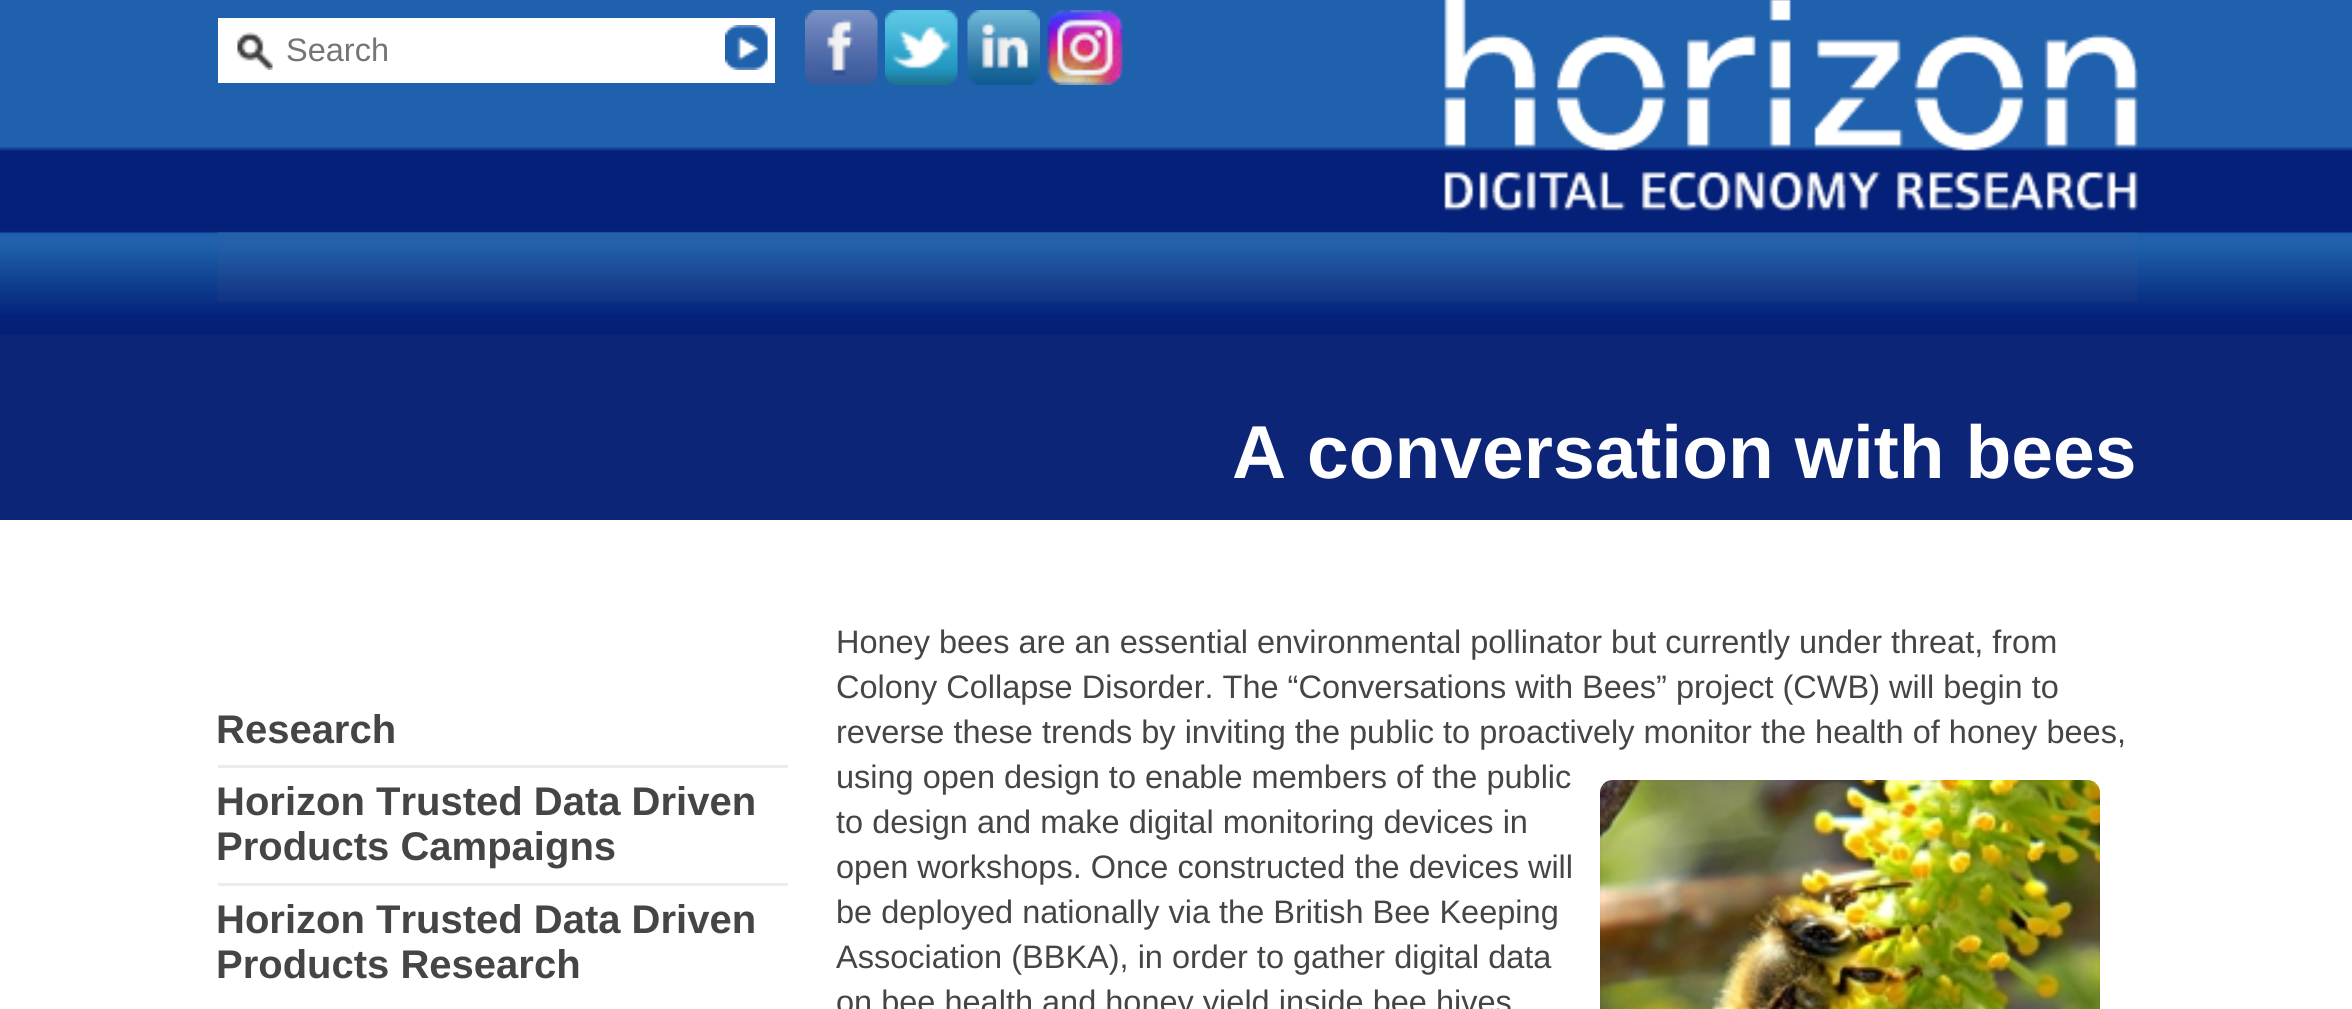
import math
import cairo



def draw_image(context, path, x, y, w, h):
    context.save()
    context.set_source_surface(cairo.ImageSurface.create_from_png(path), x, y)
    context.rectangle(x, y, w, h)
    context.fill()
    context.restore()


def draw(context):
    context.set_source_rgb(1, 1, 1)
    context.paint()
    draw_image(context, "images/1.png", 0, 0, 2352, 335)
    context.set_source_rgb(1, 1, 1)
    context.rectangle(218, 18, 557, 65)
    context.fill()
    draw_image(context, "images/2.png", 237, 32, 36, 38)
    context.set_source_rgb(239 / 255, 239 / 255, 239 / 255)
    context.rectangle(767, 25, 1, 45)
    context.fill()
    draw_image(context, "images/3.png", 725, 25, 43, 45)
    draw_image(context, "images/4.png", 805, 10, 73, 75)
    draw_image(context, "images/5.png", 885, 10, 73, 75)
    draw_image(context, "images/6.png", 967, 10, 73, 75)
    draw_image(context, "images/7.png", 1047, 10, 76, 75)
    draw_image(context, "images/8.png", 1442, 0, 696, 233)
    draw_image(context, "images/9.png", 217, 232, 1921, 70)
    context.set_source_rgb(12 / 255, 37 / 255, 119 / 255)
    context.rectangle(0, 335, 2352, 185)
    context.fill()
    context.set_source_rgb(236 / 255, 236 / 255, 236 / 255)
    context.rectangle(218, 765, 570, 3)
    context.fill()
    context.rectangle(218, 883, 570, 3)
    context.fill()
    draw_image(context, "images/10.png", 1600, 780, 500, 229)
    context.select_font_face("Liberation Sans")
    context.set_font_size(32.5)
    context.set_source_rgb(117 / 255, 117 / 255, 117 / 255)
    context.move_to(286, 61)
    context.show_text("Search")
    context.select_font_face("Liberation Sans", cairo.FontSlant.NORMAL, cairo.FontWeight.BOLD)
    context.set_font_size(75)
    context.set_source_rgb(1, 1, 1)
    context.move_to(1232, 478)
    context.show_text("A conversation with bees")
    context.set_font_size(40)
    context.set_source_rgb(69 / 255, 69 / 255, 69 / 255)
    context.move_to(216, 743)
    context.show_text("Research")
    context.move_to(216, 815)
    context.show_text("Horizon Trusted Data Driven")
    context.move_to(216, 860)
    context.show_text("Products Campaigns")
    context.move_to(216, 933)
    context.show_text("Horizon Trusted Data Driven")
    context.move_to(216, 978)
    context.show_text("Products Research")
    context.select_font_face("Liberation Sans")
    context.set_font_size(32.5)
    context.move_to(836, 653)
    context.show_text("Honey bees are an essential environmental pollinator but currently under threat, from")
    context.move_to(836, 698)
    context.show_text("Colony Collapse Disorder. The “Conversations with Bees” project (CWB) will begin to")
    context.move_to(836, 743)
    context.show_text("reverse these trends by inviting the public to proactively monitor the health of honey bees,")
    context.move_to(836, 788)
    context.show_text("using open design to enable members of the public")
    context.move_to(836, 833)
    context.show_text("to design and make digital monitoring devices in")
    context.move_to(836, 878)
    context.show_text("open workshops. Once constructed the devices will")
    context.move_to(836, 923)
    context.show_text("be deployed nationally via the British Bee Keeping")
    context.move_to(836, 968)
    context.show_text("Association (BBKA), in order to gather digital data")
    context.move_to(836, 1013)
    context.show_text("on bee health and honey yield inside bee hives")


surface = cairo.ImageSurface(cairo.Format.RGB24, 2352, 1009)
context = cairo.Context(surface)
options = cairo.FontOptions()
options.set_hint_metrics(cairo.HintMetrics.OFF)
options.set_hint_style(cairo.HintStyle.NONE)
context.set_font_options(options)
context.set_miter_limit(4)
draw(context)
surface.write_to_png("out.png")
